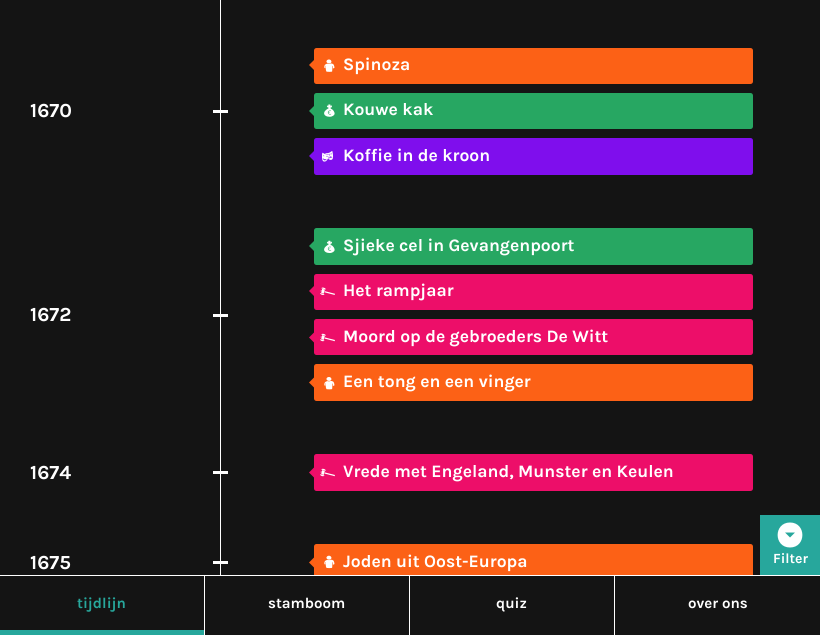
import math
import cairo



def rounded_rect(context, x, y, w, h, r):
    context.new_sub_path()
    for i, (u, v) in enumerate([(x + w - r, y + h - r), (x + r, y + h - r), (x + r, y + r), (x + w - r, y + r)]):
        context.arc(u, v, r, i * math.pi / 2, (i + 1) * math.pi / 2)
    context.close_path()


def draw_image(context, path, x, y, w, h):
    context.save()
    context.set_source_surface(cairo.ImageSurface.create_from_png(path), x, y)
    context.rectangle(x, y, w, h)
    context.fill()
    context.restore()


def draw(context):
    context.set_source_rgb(20 / 255, 20 / 255, 20 / 255)
    context.paint()
    context.set_source_rgb(1, 1, 1)
    context.rectangle(220, 0, 1, 575)
    context.fill()
    context.rectangle(213, 110, 15, 3)
    context.fill()
    context.set_source_rgb(252 / 255, 97 / 255, 22 / 255)
    rounded_rect(context, 314, 48, 439, 36, 2.5)
    context.fill()
    draw_image(context, "images/1.png", 324, 59, 11, 13)
    context.new_path()
    context.move_to(314, 60)
    context.line_to(314, 70)
    context.line_to(309, 65)
    context.close_path()
    context.fill()
    context.set_source_rgb(39 / 255, 167 / 255, 98 / 255)
    rounded_rect(context, 314, 93, 439, 36, 2.5)
    context.fill()
    draw_image(context, "images/2.png", 324, 104, 11, 13)
    context.new_path()
    context.move_to(314, 106)
    context.line_to(314, 116)
    context.line_to(309, 111)
    context.close_path()
    context.fill()
    context.set_source_rgb(127 / 255, 14 / 255, 237 / 255)
    rounded_rect(context, 314, 138, 439, 37, 2.5)
    context.fill()
    draw_image(context, "images/3.png", 322, 151, 12, 11)
    context.new_path()
    context.move_to(314, 151)
    context.line_to(314, 161)
    context.line_to(309, 156)
    context.close_path()
    context.fill()
    context.set_source_rgb(1, 1, 1)
    context.rectangle(213, 314, 15, 3)
    context.fill()
    context.set_source_rgb(39 / 255, 167 / 255, 98 / 255)
    rounded_rect(context, 314, 228, 439, 37, 2.5)
    context.fill()
    draw_image(context, "images/4.png", 324, 240, 11, 13)
    context.new_path()
    context.move_to(314, 241)
    context.line_to(314, 251)
    context.line_to(309, 246)
    context.close_path()
    context.fill()
    context.set_source_rgb(237 / 255, 14 / 255, 105 / 255)
    rounded_rect(context, 314, 274, 439, 36, 2.5)
    context.fill()
    draw_image(context, "images/5.png", 320, 287, 15, 8)
    context.new_path()
    context.move_to(314, 286)
    context.line_to(314, 296)
    context.line_to(309, 291)
    context.close_path()
    context.fill()
    rounded_rect(context, 314, 319, 439, 36, 2.5)
    context.fill()
    draw_image(context, "images/6.png", 320, 333, 15, 9)
    context.new_path()
    context.move_to(314, 332.5)
    context.line_to(314, 342.5)
    context.line_to(309, 337.5)
    context.close_path()
    context.fill()
    context.set_source_rgb(252 / 255, 97 / 255, 22 / 255)
    rounded_rect(context, 314, 364, 439, 37, 2.5)
    context.fill()
    draw_image(context, "images/7.png", 324, 377, 11, 13)
    context.new_path()
    context.move_to(314, 377.5)
    context.line_to(314, 387.5)
    context.line_to(309, 382.5)
    context.close_path()
    context.fill()
    context.set_source_rgb(1, 1, 1)
    context.rectangle(213, 471, 15, 3)
    context.fill()
    context.set_source_rgb(237 / 255, 14 / 255, 105 / 255)
    rounded_rect(context, 314, 454, 439, 37, 2.5)
    context.fill()
    draw_image(context, "images/6.png", 320, 468, 15, 9)
    context.new_path()
    context.move_to(314, 467.5)
    context.line_to(314, 477.5)
    context.line_to(309, 472.5)
    context.close_path()
    context.fill()
    context.set_source_rgb(1, 1, 1)
    context.rectangle(213, 561, 15, 3)
    context.fill()
    context.set_source_rgb(252 / 255, 97 / 255, 22 / 255)
    rounded_rect(context, 314, 544, 439, 37, 2.5)
    context.fill()
    draw_image(context, "images/8.png", 324, 555, 11, 14)
    context.new_path()
    context.move_to(314, 557.5)
    context.line_to(314, 567.5)
    context.line_to(309, 562.5)
    context.close_path()
    context.fill()
    context.set_source_rgb(39 / 255, 167 / 255, 156 / 255)
    context.rectangle(760, 515, 60, 60)
    context.fill()
    context.set_source_rgb(1, 1, 1)
    context.new_path()
    context.move_to(790, 522.5)
    context.curve_to(773.5, 522.5, 773.5, 547.5, 790, 547.5)
    context.curve_to(806.5, 547.5, 806.5, 522.5, 790, 522.5)
    context.close_path()
    context.move_to(790, 537.5)
    context.line_to(785, 532.5)
    context.line_to(795, 532.5)
    context.close_path()
    context.fill()
    context.set_source_rgb(20 / 255, 20 / 255, 20 / 255)
    context.rectangle(314, 576, 439, 5)
    context.fill()
    context.set_source_rgb(1, 1, 1)
    context.rectangle(0, 575, 820, 1)
    context.fill()
    context.rectangle(204, 575, 1, 60)
    context.fill()
    context.set_source_rgb(39 / 255, 167 / 255, 156 / 255)
    context.rectangle(0, 630, 204, 5)
    context.fill()
    context.set_source_rgb(1, 1, 1)
    context.rectangle(409, 575, 1, 60)
    context.fill()
    context.rectangle(614, 575, 1, 60)
    context.fill()
    context.select_font_face("Karla", cairo.FontSlant.NORMAL, cairo.FontWeight.BOLD)
    context.set_font_size(20)
    context.move_to(30, 117)
    context.show_text("1670")
    context.set_font_size(17.5)
    context.move_to(343, 70)
    context.show_text("Spinoza")
    context.move_to(343, 115)
    context.show_text("Kouwe kak")
    context.move_to(343, 161)
    context.show_text("Koffie in de kroon")
    context.set_font_size(20)
    context.move_to(30, 321)
    context.show_text("1672")
    context.set_font_size(17.5)
    context.move_to(343, 251)
    context.show_text("Sjieke cel in Gevangenpoort")
    context.move_to(343, 296)
    context.show_text("Het rampjaar")
    context.move_to(343, 342)
    context.show_text("Moord op de gebroeders De Witt")
    context.move_to(343, 387)
    context.show_text("Een tong en een vinger")
    context.set_font_size(20)
    context.move_to(30, 479)
    context.show_text("1674")
    context.set_font_size(17.5)
    context.move_to(343, 477)
    context.show_text("Vrede met Engeland, Munster en Keulen")
    context.set_font_size(20)
    context.move_to(30, 569)
    context.show_text("1675")
    context.set_font_size(17.5)
    context.move_to(343, 567)
    context.show_text("Joden uit Oost-Europa")
    context.set_font_size(14)
    context.move_to(773, 563)
    context.show_text("Filter")
    context.set_font_size(15)
    context.set_source_rgb(39 / 255, 167 / 255, 156 / 255)
    context.move_to(77, 608)
    context.show_text("tijdlijn")
    context.set_source_rgb(1, 1, 1)
    context.move_to(268, 608)
    context.show_text("stamboom")
    context.move_to(496, 608)
    context.show_text("quiz")
    context.move_to(688, 608)
    context.show_text("over ons")


surface = cairo.ImageSurface(cairo.Format.RGB24, 820, 635)
context = cairo.Context(surface)
options = cairo.FontOptions()
options.set_hint_metrics(cairo.HintMetrics.OFF)
options.set_hint_style(cairo.HintStyle.NONE)
context.set_font_options(options)
context.set_miter_limit(4)
draw(context)
surface.write_to_png("out.png")
